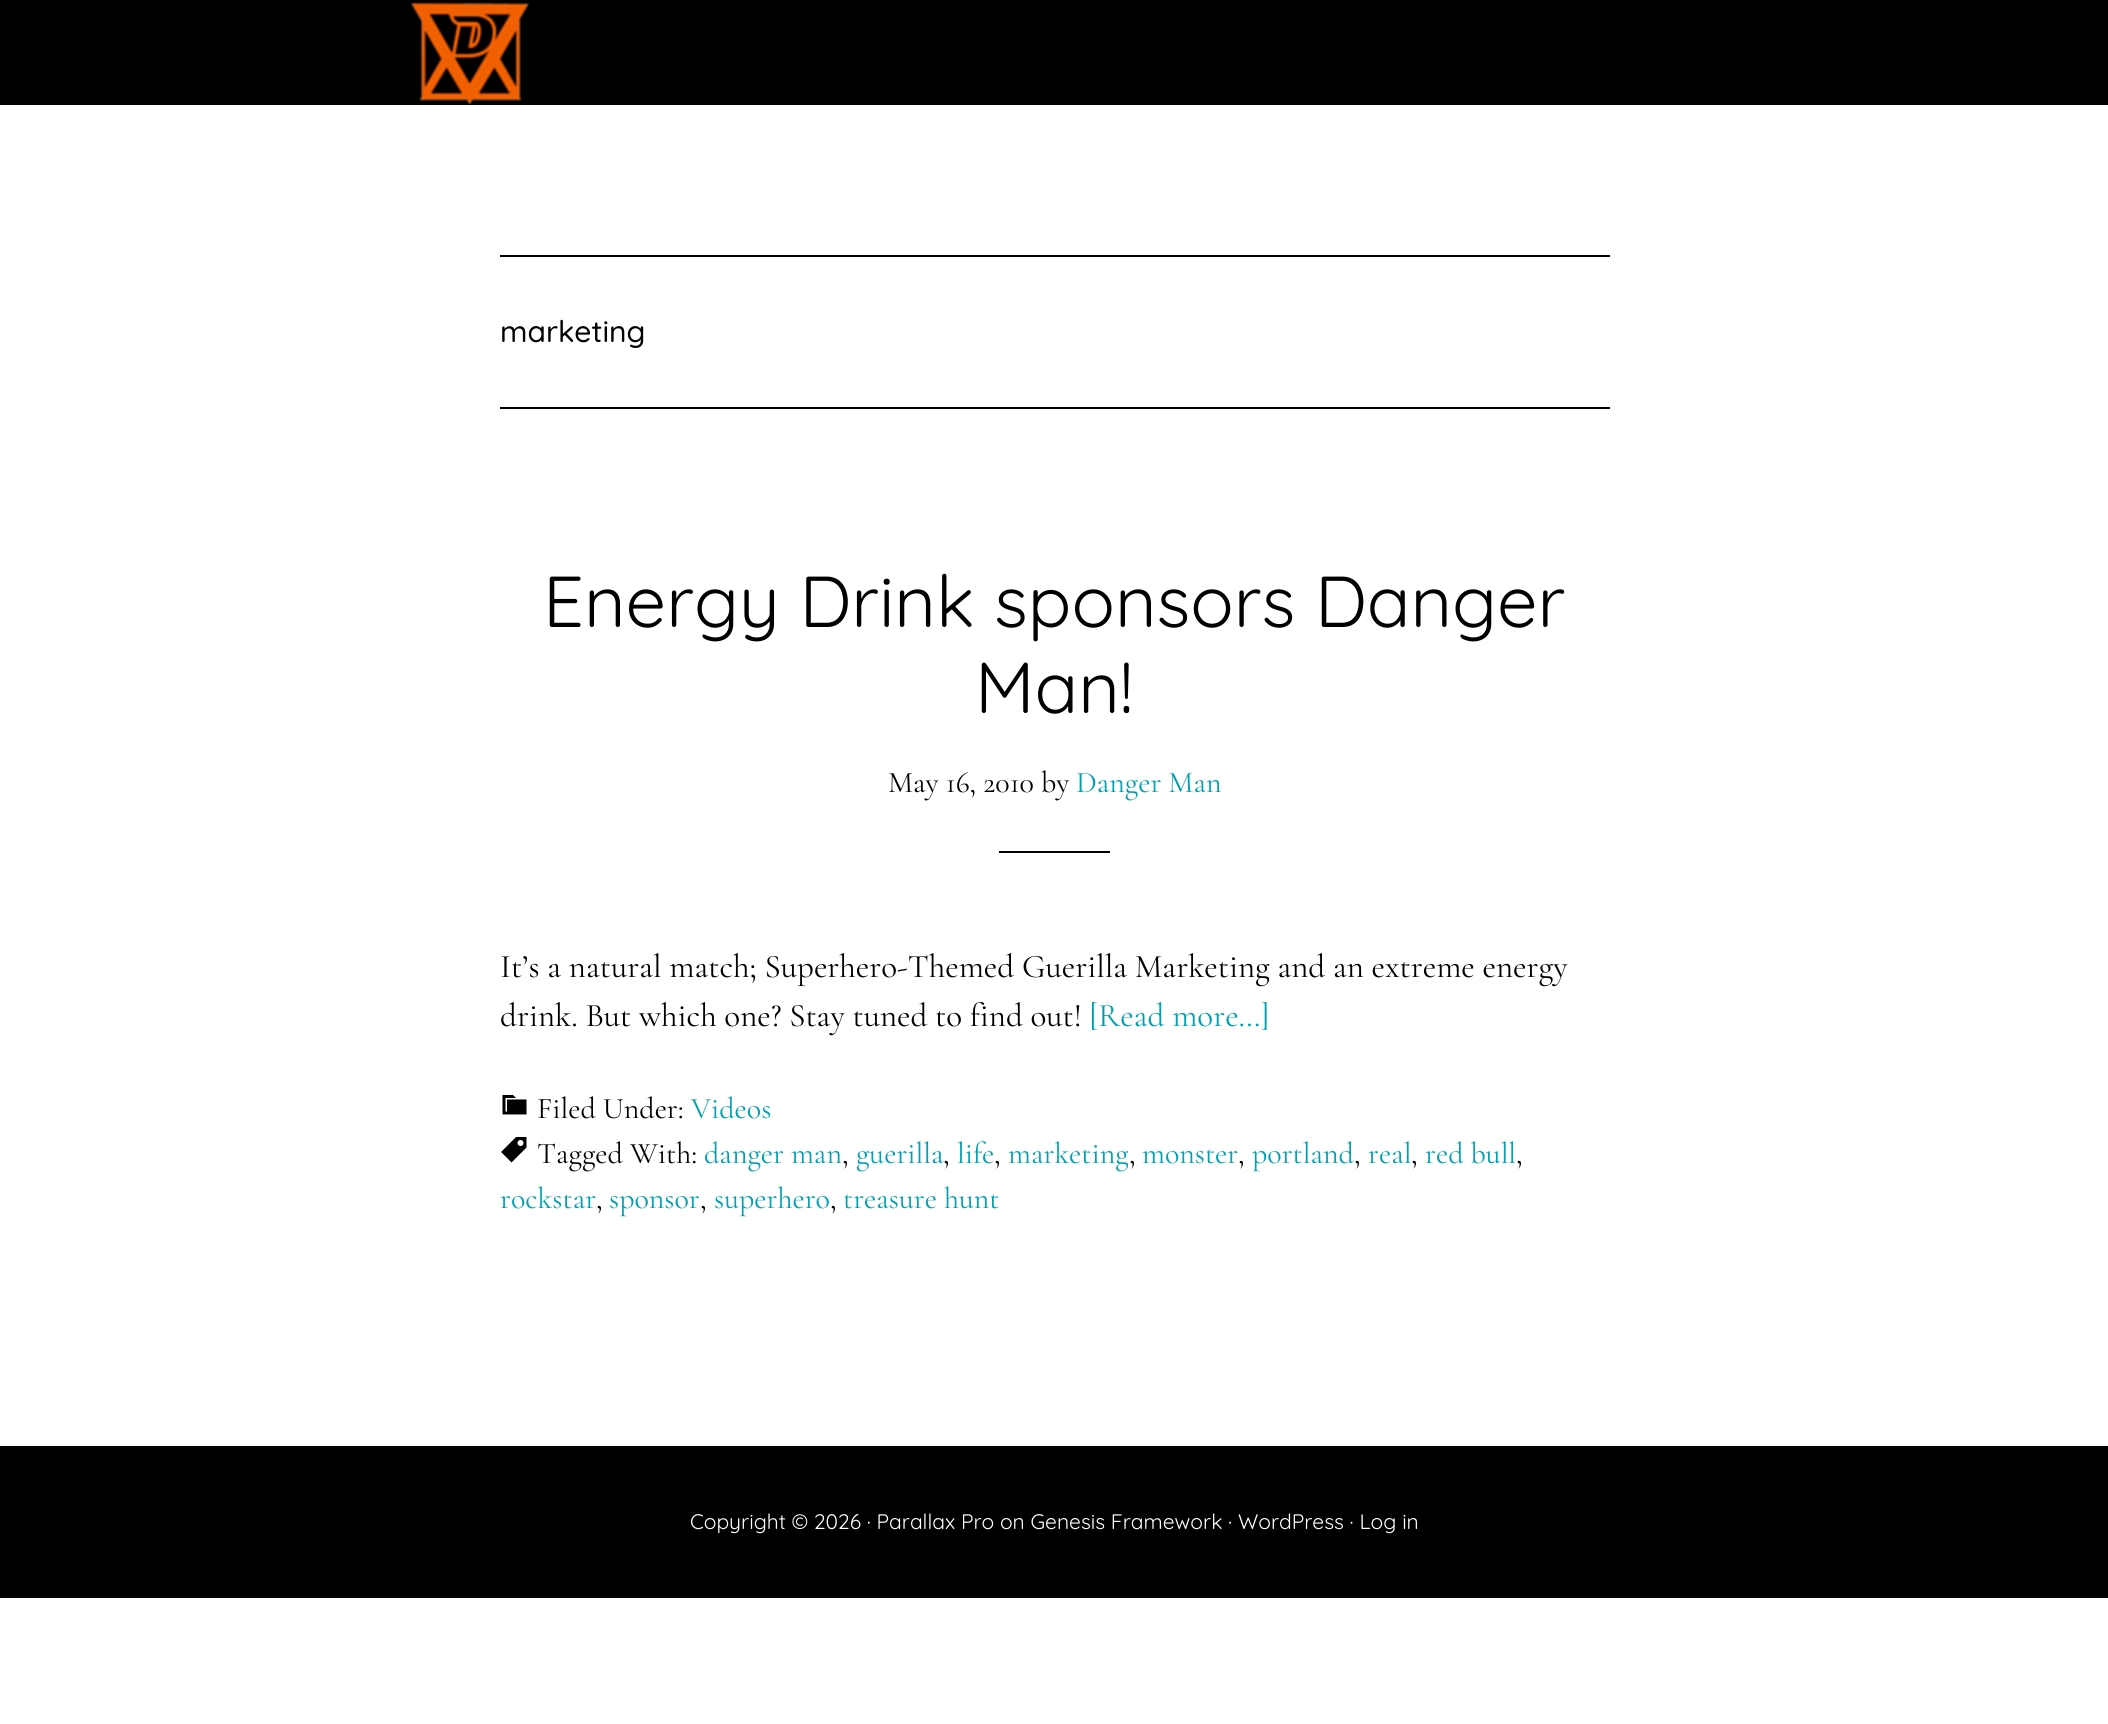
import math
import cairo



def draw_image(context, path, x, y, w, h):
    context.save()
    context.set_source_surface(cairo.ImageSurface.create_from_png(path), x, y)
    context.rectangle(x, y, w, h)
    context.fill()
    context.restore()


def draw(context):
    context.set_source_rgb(1, 1, 1)
    context.paint()
    context.set_source_rgb(0, 0, 0)
    context.rectangle(0, 0, 2108, 105)
    context.fill()
    draw_image(context, "images/1.png", 410, 2, 120, 103)
    context.rectangle(500, 255, 1110, 2)
    context.fill()
    context.rectangle(500, 407, 1110, 2)
    context.fill()
    context.rectangle(999, 851, 111, 2)
    context.fill()
    draw_image(context, "images/2.png", 502, 1095, 25, 20)
    draw_image(context, "images/3.png", 501, 1137, 26, 26)
    context.rectangle(0, 1446, 2108, 152)
    context.fill()
    context.select_font_face("Quicksand Medium")
    context.set_font_size(30)
    context.move_to(500, 342)
    context.show_text("marketing")
    context.select_font_face("Quicksand")
    context.set_font_size(72)
    context.move_to(543, 627)
    context.show_text("Energy Drink sponsors Danger")
    context.move_to(975, 713)
    context.show_text("Man!")
    context.select_font_face("Cormorant Garamond")
    context.set_font_size(30)
    context.move_to(888, 792)
    context.show_text("May 16, 2010 by")
    context.set_source_rgb(0, 160 / 255, 175 / 255)
    context.move_to(1076, 792)
    context.show_text("Danger Man")
    context.set_font_size(33)
    context.set_source_rgb(0, 0, 0)
    context.move_to(500, 977)
    context.show_text("It’s a natural match; Superhero-Themed Guerilla Marketing and an extreme energy")
    context.move_to(500, 1026)
    context.show_text("drink. But which one? Stay tuned to find out!")
    context.set_source_rgb(0, 160 / 255, 175 / 255)
    context.move_to(1089, 1026)
    context.show_text("[Read more…]")
    context.set_font_size(30)
    context.set_source_rgb(0, 0, 0)
    context.move_to(537, 1118)
    context.show_text("Filed Under:")
    context.set_source_rgb(0, 160 / 255, 175 / 255)
    context.move_to(691, 1118)
    context.show_text("Videos")
    context.set_source_rgb(0, 0, 0)
    context.move_to(537, 1163)
    context.show_text("Tagged With:")
    context.set_source_rgb(0, 160 / 255, 175 / 255)
    context.move_to(704, 1163)
    context.show_text("danger man")
    context.set_source_rgb(0, 0, 0)
    context.move_to(842, 1163)
    context.show_text(",")
    context.set_source_rgb(0, 160 / 255, 175 / 255)
    context.move_to(856, 1163)
    context.show_text("guerilla")
    context.set_source_rgb(0, 0, 0)
    context.move_to(943, 1163)
    context.show_text(",")
    context.set_source_rgb(0, 160 / 255, 175 / 255)
    context.move_to(957, 1163)
    context.show_text("life")
    context.set_source_rgb(0, 0, 0)
    context.move_to(994, 1163)
    context.show_text(",")
    context.set_source_rgb(0, 160 / 255, 175 / 255)
    context.move_to(1008, 1163)
    context.show_text("marketing")
    context.set_source_rgb(0, 0, 0)
    context.move_to(1129, 1163)
    context.show_text(",")
    context.set_source_rgb(0, 160 / 255, 175 / 255)
    context.move_to(1142, 1163)
    context.show_text("monster")
    context.set_source_rgb(0, 0, 0)
    context.move_to(1238, 1163)
    context.show_text(",")
    context.set_source_rgb(0, 160 / 255, 175 / 255)
    context.move_to(1252, 1163)
    context.show_text("portland")
    context.set_source_rgb(0, 0, 0)
    context.move_to(1354, 1163)
    context.show_text(",")
    context.set_source_rgb(0, 160 / 255, 175 / 255)
    context.move_to(1368, 1163)
    context.show_text("real")
    context.set_source_rgb(0, 0, 0)
    context.move_to(1411, 1163)
    context.show_text(",")
    context.set_source_rgb(0, 160 / 255, 175 / 255)
    context.move_to(1425, 1163)
    context.show_text("red bull")
    context.set_source_rgb(0, 0, 0)
    context.move_to(1516, 1163)
    context.show_text(",")
    context.set_source_rgb(0, 160 / 255, 175 / 255)
    context.move_to(500, 1208)
    context.show_text("rockstar")
    context.set_source_rgb(0, 0, 0)
    context.move_to(596, 1208)
    context.show_text(",")
    context.set_source_rgb(0, 160 / 255, 175 / 255)
    context.move_to(609, 1208)
    context.show_text("sponsor")
    context.set_source_rgb(0, 0, 0)
    context.move_to(700, 1208)
    context.show_text(",")
    context.set_source_rgb(0, 160 / 255, 175 / 255)
    context.move_to(714, 1208)
    context.show_text("superhero")
    context.set_source_rgb(0, 0, 0)
    context.move_to(830, 1208)
    context.show_text(",")
    context.set_source_rgb(0, 160 / 255, 175 / 255)
    context.move_to(843, 1208)
    context.show_text("treasure hunt")
    context.select_font_face("Quicksand")
    context.set_font_size(21)
    context.set_source_rgb(1, 1, 1)
    context.move_to(690, 1529)
    context.show_text("Copyright © 2026 · Parallax Pro on Genesis Framework · WordPress · Log in")


surface = cairo.ImageSurface(cairo.Format.RGB24, 2108, 1724)
context = cairo.Context(surface)
options = cairo.FontOptions()
options.set_hint_metrics(cairo.HintMetrics.OFF)
options.set_hint_style(cairo.HintStyle.NONE)
context.set_font_options(options)
context.set_miter_limit(4)
draw(context)
surface.write_to_png("out.png")
